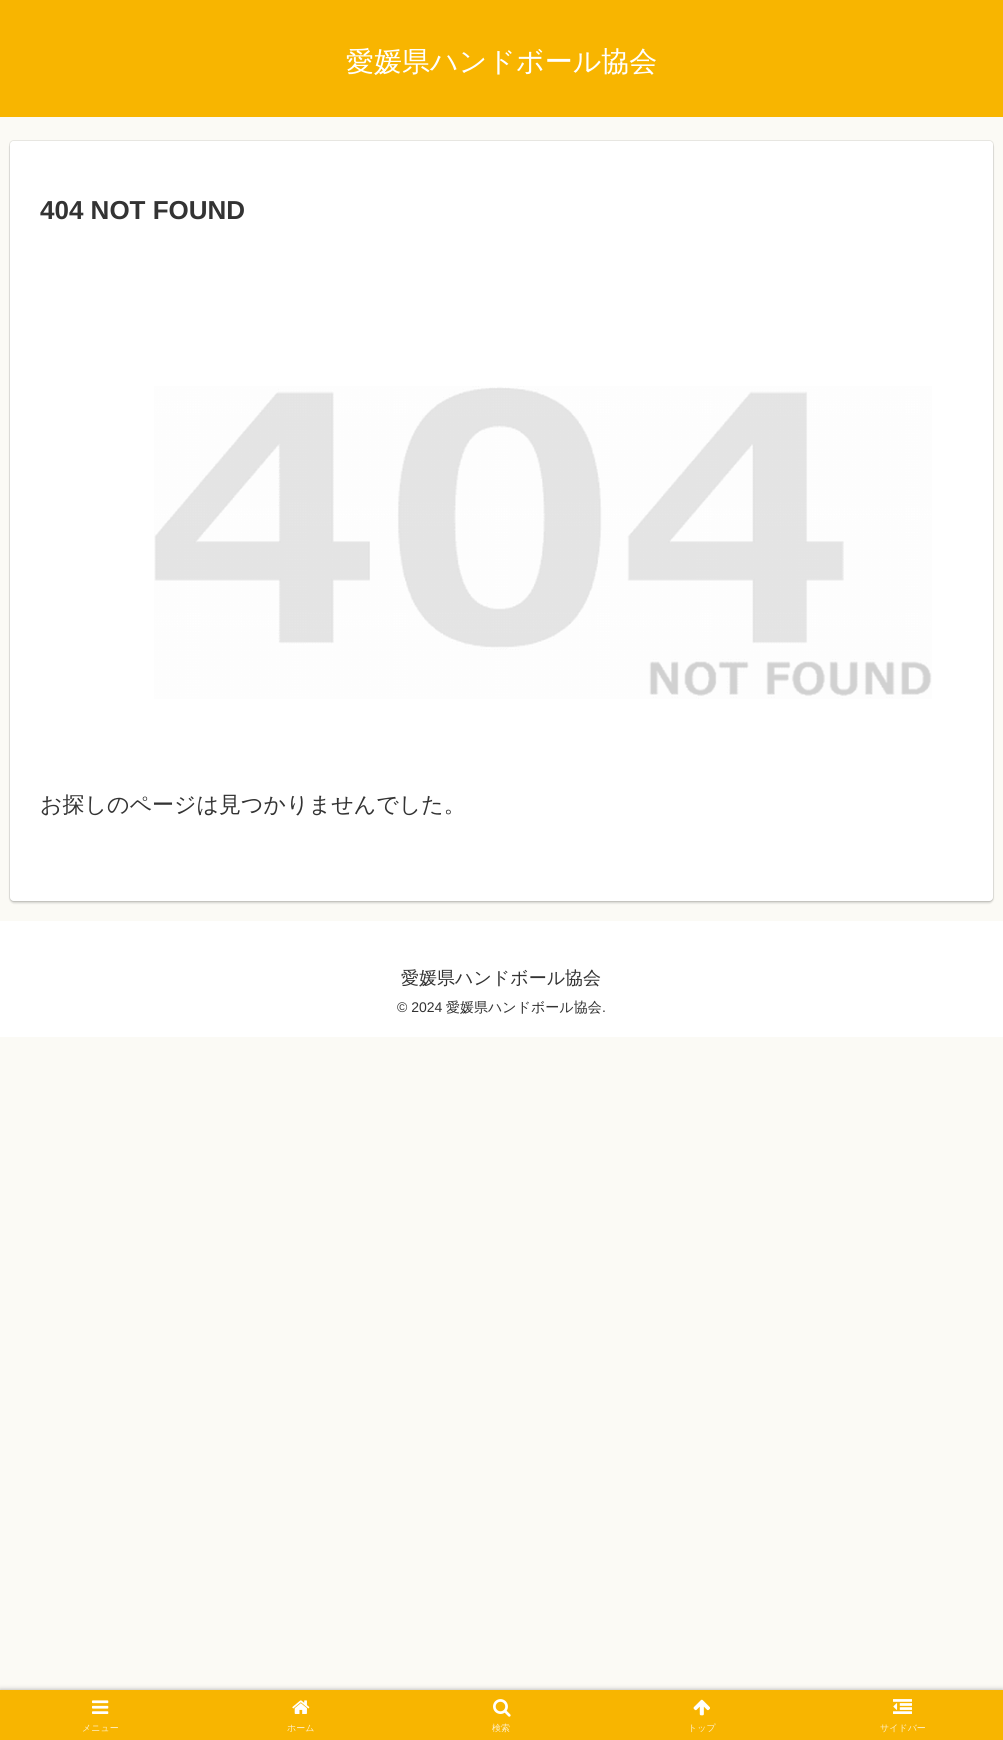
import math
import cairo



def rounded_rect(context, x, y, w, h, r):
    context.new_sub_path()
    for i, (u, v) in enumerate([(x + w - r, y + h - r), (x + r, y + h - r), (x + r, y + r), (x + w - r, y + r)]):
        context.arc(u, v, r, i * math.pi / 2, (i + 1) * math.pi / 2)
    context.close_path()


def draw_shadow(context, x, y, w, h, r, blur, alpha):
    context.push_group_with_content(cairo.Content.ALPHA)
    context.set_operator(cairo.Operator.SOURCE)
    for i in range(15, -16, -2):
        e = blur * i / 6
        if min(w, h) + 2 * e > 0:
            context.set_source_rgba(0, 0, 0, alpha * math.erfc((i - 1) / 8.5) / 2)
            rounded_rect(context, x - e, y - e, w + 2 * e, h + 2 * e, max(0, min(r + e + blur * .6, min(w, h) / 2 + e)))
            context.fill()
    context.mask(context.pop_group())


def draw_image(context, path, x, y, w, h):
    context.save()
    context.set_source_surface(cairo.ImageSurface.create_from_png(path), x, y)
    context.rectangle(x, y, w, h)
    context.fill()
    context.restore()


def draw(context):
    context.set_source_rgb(251 / 255, 250 / 255, 245 / 255)
    context.paint()
    context.set_source_rgb(248 / 255, 181 / 255, 0)
    context.rectangle(0, 0, 1003, 117)
    context.fill()
    rounded_rect(context, 9.5, 140.5, 984, 761, 4.5)
    context.set_source_rgb(231 / 255, 230 / 255, 225 / 255)
    context.set_line_width(1)
    context.stroke()
    context.set_source_rgb(0, 0, 0)
    draw_shadow(context, 10, 143, 983, 760, 4, 1, 0.16)
    context.set_source_rgb(1, 1, 1)
    rounded_rect(context, 10, 141, 983, 760, 4)
    context.fill()
    draw_image(context, "images/1.png", 154, 386, 778, 313)
    context.rectangle(0, 921, 1003, 116)
    context.fill()
    context.set_source_rgb(169 / 255, 169 / 255, 169 / 255)
    draw_shadow(context, 0, 1690, 1003, 50, 0, 2.5, 1)
    context.set_source_rgb(248 / 255, 181 / 255, 0)
    context.rectangle(0, 1690, 1003, 50)
    context.fill()
    draw_image(context, "images/2.png", 92, 1700, 17, 14)
    draw_image(context, "images/3.png", 292, 1700, 18, 14)
    draw_image(context, "images/4.png", 493, 1699, 18, 18)
    draw_image(context, "images/5.png", 693, 1699, 17, 17)
    draw_image(context, "images/6.png", 893, 1699, 19, 15)
    context.select_font_face("WenQuanYi Zen Hei Medium")
    context.set_font_size(28)
    context.set_source_rgb(1, 1, 1)
    context.move_to(346, 71)
    context.show_text("愛媛県ハンドボール協会")
    context.select_font_face("Liberation Sans", cairo.FontSlant.NORMAL, cairo.FontWeight.BOLD)
    context.set_font_size(26)
    context.set_source_rgb(51 / 255, 51 / 255, 51 / 255)
    context.move_to(40, 219)
    context.show_text("404 NOT FOUND")
    context.select_font_face("WenQuanYi Zen Hei Medium")
    context.set_font_size(22)
    context.move_to(40, 812)
    context.show_text("お探しのページは見つかりませんでした。")
    context.set_font_size(18)
    context.move_to(401, 984)
    context.show_text("愛媛県ハンドボール協会")
    context.select_font_face("Liberation Sans")
    context.set_font_size(14)
    context.move_to(397, 1012)
    context.show_text("© 2024")
    context.select_font_face("WenQuanYi Zen Hei Medium")
    context.move_to(446, 1012)
    context.show_text("愛媛県ハンドボール協会")
    context.select_font_face("Liberation Sans")
    context.move_to(602, 1012)
    context.show_text(".")
    context.select_font_face("WenQuanYi Zen Hei Medium")
    context.set_font_size(9)
    context.set_source_rgb(254 / 255, 240 / 255, 204 / 255)
    context.move_to(82, 1731)
    context.show_text("メニュー")
    context.move_to(287, 1731)
    context.show_text("ホーム")
    context.move_to(492, 1731)
    context.show_text("検索")
    context.move_to(688, 1731)
    context.show_text("トップ")
    context.move_to(880, 1731)
    context.show_text("サイドバー")


surface = cairo.ImageSurface(cairo.Format.RGB24, 1003, 1740)
context = cairo.Context(surface)
options = cairo.FontOptions()
options.set_hint_metrics(cairo.HintMetrics.OFF)
options.set_hint_style(cairo.HintStyle.NONE)
context.set_font_options(options)
context.set_miter_limit(4)
draw(context)
surface.write_to_png("out.png")
